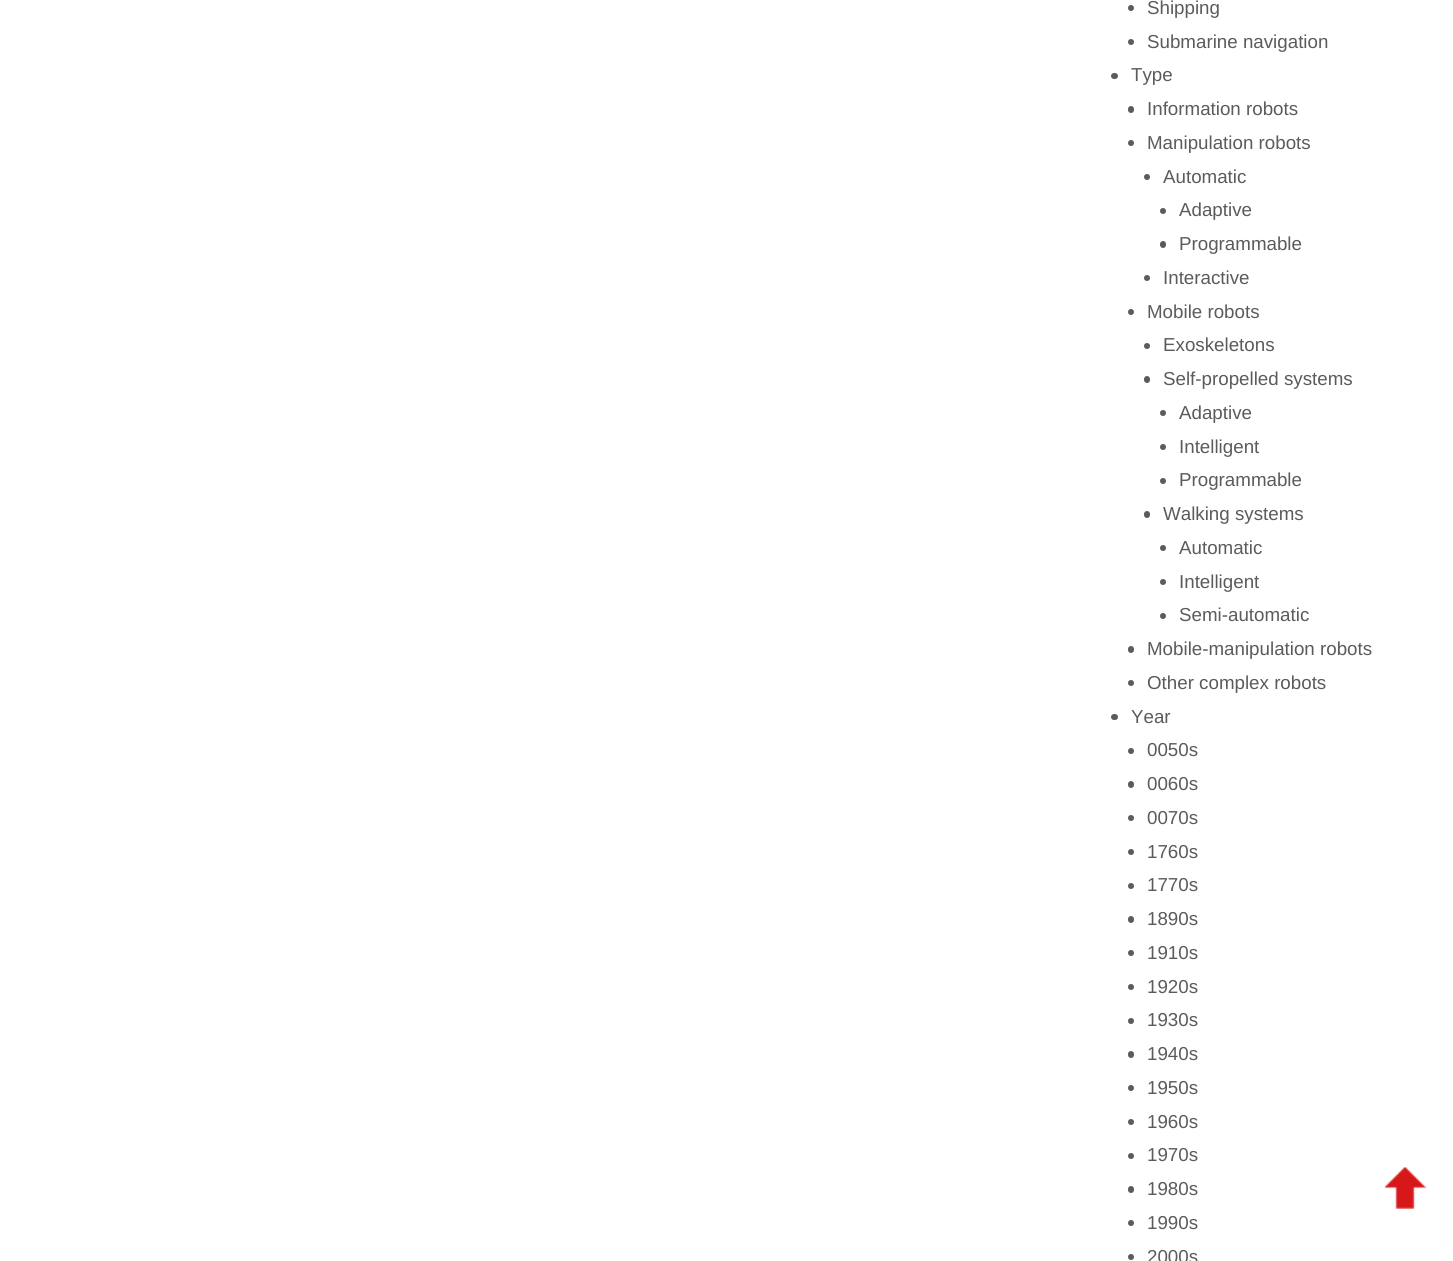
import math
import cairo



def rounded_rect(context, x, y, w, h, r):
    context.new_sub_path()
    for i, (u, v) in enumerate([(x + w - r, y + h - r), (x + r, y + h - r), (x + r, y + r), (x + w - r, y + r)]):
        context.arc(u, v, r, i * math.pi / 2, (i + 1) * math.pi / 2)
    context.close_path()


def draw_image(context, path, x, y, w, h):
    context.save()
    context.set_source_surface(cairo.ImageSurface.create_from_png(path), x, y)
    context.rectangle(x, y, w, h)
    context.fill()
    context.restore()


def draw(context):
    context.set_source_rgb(1, 1, 1)
    context.paint()
    context.set_source_rgb(91 / 255, 91 / 255, 91 / 255)
    context.arc(1131, 8, 3, 0, 2 * math.pi)
    context.fill()
    context.arc(1131, 42, 3, 0, 2 * math.pi)
    context.fill()
    rounded_rect(context, 1111, 73, 7, 6, 3)
    context.fill()
    rounded_rect(context, 1128, 106, 6, 7, 3)
    context.fill()
    context.arc(1131, 143, 3, 0, 2 * math.pi)
    context.fill()
    context.arc(1147, 177, 3, 0, 2 * math.pi)
    context.fill()
    context.arc(1163, 211, 3, 0, 2 * math.pi)
    context.fill()
    rounded_rect(context, 1160, 241, 6, 7, 3)
    context.fill()
    context.arc(1147, 278, 3, 0, 2 * math.pi)
    context.fill()
    context.arc(1131, 312, 3, 0, 2 * math.pi)
    context.fill()
    context.arc(1147, 346, 3, 0, 2 * math.pi)
    context.fill()
    rounded_rect(context, 1144, 376, 6, 7, 3)
    context.fill()
    context.arc(1163, 413, 3, 0, 2 * math.pi)
    context.fill()
    context.arc(1163, 447, 3, 0, 2 * math.pi)
    context.fill()
    context.arc(1163, 481, 3, 0, 2 * math.pi)
    context.fill()
    rounded_rect(context, 1144, 511, 6, 7, 3)
    context.fill()
    context.arc(1163, 548, 3, 0, 2 * math.pi)
    context.fill()
    context.arc(1163, 582, 3, 0, 2 * math.pi)
    context.fill()
    context.arc(1163, 616, 3, 0, 2 * math.pi)
    context.fill()
    rounded_rect(context, 1128, 646, 6, 7, 3)
    context.fill()
    context.arc(1131, 683, 3, 0, 2 * math.pi)
    context.fill()
    rounded_rect(context, 1111, 714, 7, 6, 3)
    context.fill()
    context.arc(1131, 751, 3, 0, 2 * math.pi)
    context.fill()
    rounded_rect(context, 1128, 781, 6, 7, 3)
    context.fill()
    context.arc(1131, 818, 3, 0, 2 * math.pi)
    context.fill()
    context.arc(1131, 852, 3, 0, 2 * math.pi)
    context.fill()
    context.arc(1131, 886, 3, 0, 2 * math.pi)
    context.fill()
    rounded_rect(context, 1128, 916, 6, 7, 3)
    context.fill()
    context.arc(1131, 953, 3, 0, 2 * math.pi)
    context.fill()
    context.arc(1131, 987, 3, 0, 2 * math.pi)
    context.fill()
    context.arc(1131, 1021, 3, 0, 2 * math.pi)
    context.fill()
    rounded_rect(context, 1128, 1051, 6, 7, 3)
    context.fill()
    context.arc(1131, 1088, 3, 0, 2 * math.pi)
    context.fill()
    context.arc(1131, 1122, 3, 0, 2 * math.pi)
    context.fill()
    context.arc(1131, 1156, 3, 0, 2 * math.pi)
    context.fill()
    rounded_rect(context, 1128, 1186, 6, 7, 3)
    context.fill()
    context.arc(1131, 1223, 3, 0, 2 * math.pi)
    context.fill()
    context.arc(1131, 1257, 3, 0, 2 * math.pi)
    context.fill()
    draw_image(context, "images/1.png", 1384, 1167, 43, 42)
    context.select_font_face("Liberation Sans")
    context.set_font_size(18.75)
    context.move_to(1147, 14)
    context.show_text("Shipping")
    context.move_to(1147, 48)
    context.show_text("Submarine navigation")
    context.move_to(1131, 81)
    context.show_text("Type")
    context.move_to(1147, 115)
    context.show_text("Information robots")
    context.move_to(1147, 149)
    context.show_text("Manipulation robots")
    context.move_to(1163, 183)
    context.show_text("Automatic")
    context.move_to(1179, 216)
    context.show_text("Adaptive")
    context.move_to(1179, 250)
    context.show_text("Programmable")
    context.move_to(1163, 284)
    context.show_text("Interactive")
    context.move_to(1147, 318)
    context.show_text("Mobile robots")
    context.move_to(1163, 351)
    context.show_text("Exoskeletons")
    context.move_to(1163, 385)
    context.show_text("Self-propelled systems")
    context.move_to(1179, 419)
    context.show_text("Adaptive")
    context.move_to(1179, 453)
    context.show_text("Intelligent")
    context.move_to(1179, 486)
    context.show_text("Programmable")
    context.move_to(1163, 520)
    context.show_text("Walking systems")
    context.move_to(1179, 554)
    context.show_text("Automatic")
    context.move_to(1179, 588)
    context.show_text("Intelligent")
    context.move_to(1179, 621)
    context.show_text("Semi-automatic")
    context.move_to(1147, 655)
    context.show_text("Mobile-manipulation robots")
    context.move_to(1147, 689)
    context.show_text("Other complex robots")
    context.move_to(1131, 723)
    context.show_text("Year")
    context.move_to(1147, 756)
    context.show_text("0050s")
    context.move_to(1147, 790)
    context.show_text("0060s")
    context.move_to(1147, 824)
    context.show_text("0070s")
    context.move_to(1147, 858)
    context.show_text("1760s")
    context.move_to(1147, 891)
    context.show_text("1770s")
    context.move_to(1147, 925)
    context.show_text("1890s")
    context.move_to(1147, 959)
    context.show_text("1910s")
    context.move_to(1147, 993)
    context.show_text("1920s")
    context.move_to(1147, 1026)
    context.show_text("1930s")
    context.move_to(1147, 1060)
    context.show_text("1940s")
    context.move_to(1147, 1094)
    context.show_text("1950s")
    context.move_to(1147, 1128)
    context.show_text("1960s")
    context.move_to(1147, 1161)
    context.show_text("1970s")
    context.move_to(1147, 1195)
    context.show_text("1980s")
    context.move_to(1147, 1229)
    context.show_text("1990s")
    context.move_to(1147, 1263)
    context.show_text("2000s")


surface = cairo.ImageSurface(cairo.Format.RGB24, 1453, 1261)
context = cairo.Context(surface)
options = cairo.FontOptions()
options.set_hint_metrics(cairo.HintMetrics.OFF)
options.set_hint_style(cairo.HintStyle.NONE)
context.set_font_options(options)
context.set_miter_limit(4)
draw(context)
surface.write_to_png("out.png")
